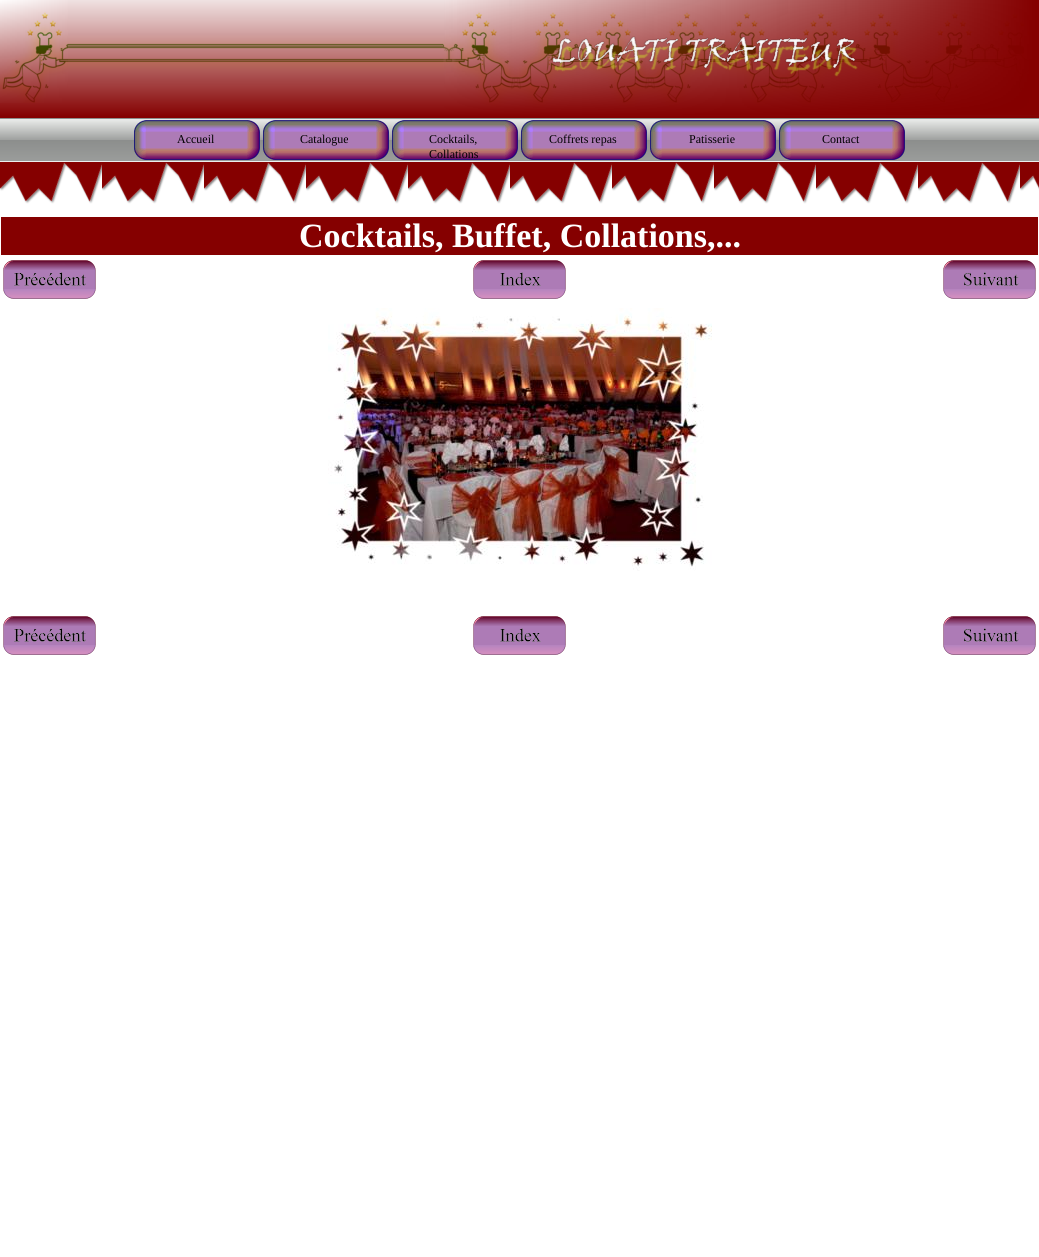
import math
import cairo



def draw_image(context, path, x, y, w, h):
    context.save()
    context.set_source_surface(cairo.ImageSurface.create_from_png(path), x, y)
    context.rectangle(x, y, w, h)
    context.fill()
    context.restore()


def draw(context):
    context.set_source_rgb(1, 1, 1)
    context.paint()
    draw_image(context, "images/1.png", 0, 0, 1039, 118)
    draw_image(context, "images/2.png", 0, 0, 68, 103)
    draw_image(context, "images/3.png", 443, 0, 596, 115)
    context.set_source_rgb(141 / 255, 143 / 255, 141 / 255)
    context.rectangle(0, 118, 1039, 1)
    context.fill()
    draw_image(context, "images/4.png", 0, 119, 1039, 43)
    draw_image(context, "images/5.png", 134, 120, 126, 40)
    draw_image(context, "images/6.png", 134, 120, 126, 40)
    draw_image(context, "images/5.png", 263, 120, 126, 40)
    draw_image(context, "images/6.png", 263, 120, 126, 40)
    draw_image(context, "images/5.png", 392, 120, 126, 40)
    draw_image(context, "images/6.png", 392, 120, 126, 40)
    draw_image(context, "images/5.png", 521, 120, 126, 40)
    draw_image(context, "images/6.png", 521, 120, 126, 40)
    draw_image(context, "images/5.png", 650, 120, 126, 40)
    draw_image(context, "images/6.png", 650, 120, 126, 40)
    draw_image(context, "images/5.png", 779, 120, 126, 40)
    draw_image(context, "images/6.png", 779, 120, 126, 40)
    draw_image(context, "images/7.png", 0, 162, 1039, 42)
    context.set_source_rgb(133 / 255, 0, 0)
    context.rectangle(1, 217, 1037, 38)
    context.fill()
    context.set_source_rgb(251 / 255, 1, 252 / 255)
    context.rectangle(1, 255, 1037, 1)
    context.fill()
    draw_image(context, "images/8.png", 3, 260, 93, 39)
    draw_image(context, "images/9.png", 473, 260, 93, 39)
    draw_image(context, "images/10.png", 943, 260, 93, 39)
    draw_image(context, "images/11.png", 328, 308, 384, 263)
    draw_image(context, "images/8.png", 3, 616, 93, 39)
    draw_image(context, "images/9.png", 473, 616, 93, 39)
    draw_image(context, "images/10.png", 943, 616, 93, 39)
    context.select_font_face("Liberation Serif")
    context.set_font_size(12)
    context.set_source_rgb(0, 0, 0)
    context.move_to(177, 143)
    context.show_text("Accueil")
    context.move_to(300, 143)
    context.show_text("Catalogue")
    context.move_to(429, 143)
    context.show_text("Cocktails,")
    context.move_to(429, 158)
    context.show_text("Collations")
    context.move_to(549, 143)
    context.show_text("Coffrets repas")
    context.move_to(689, 143)
    context.show_text("Patisserie")
    context.move_to(822, 143)
    context.show_text("Contact")
    context.select_font_face("Liberation Serif", cairo.FontSlant.NORMAL, cairo.FontWeight.BOLD)
    context.set_font_size(34)
    context.set_source_rgb(1, 1, 1)
    context.move_to(299, 247)
    context.show_text("Cocktails, Buffet, Collations,...")


surface = cairo.ImageSurface(cairo.Format.RGB24, 1039, 1257)
context = cairo.Context(surface)
options = cairo.FontOptions()
options.set_hint_metrics(cairo.HintMetrics.OFF)
options.set_hint_style(cairo.HintStyle.NONE)
context.set_font_options(options)
context.set_miter_limit(4)
draw(context)
surface.write_to_png("out.png")
